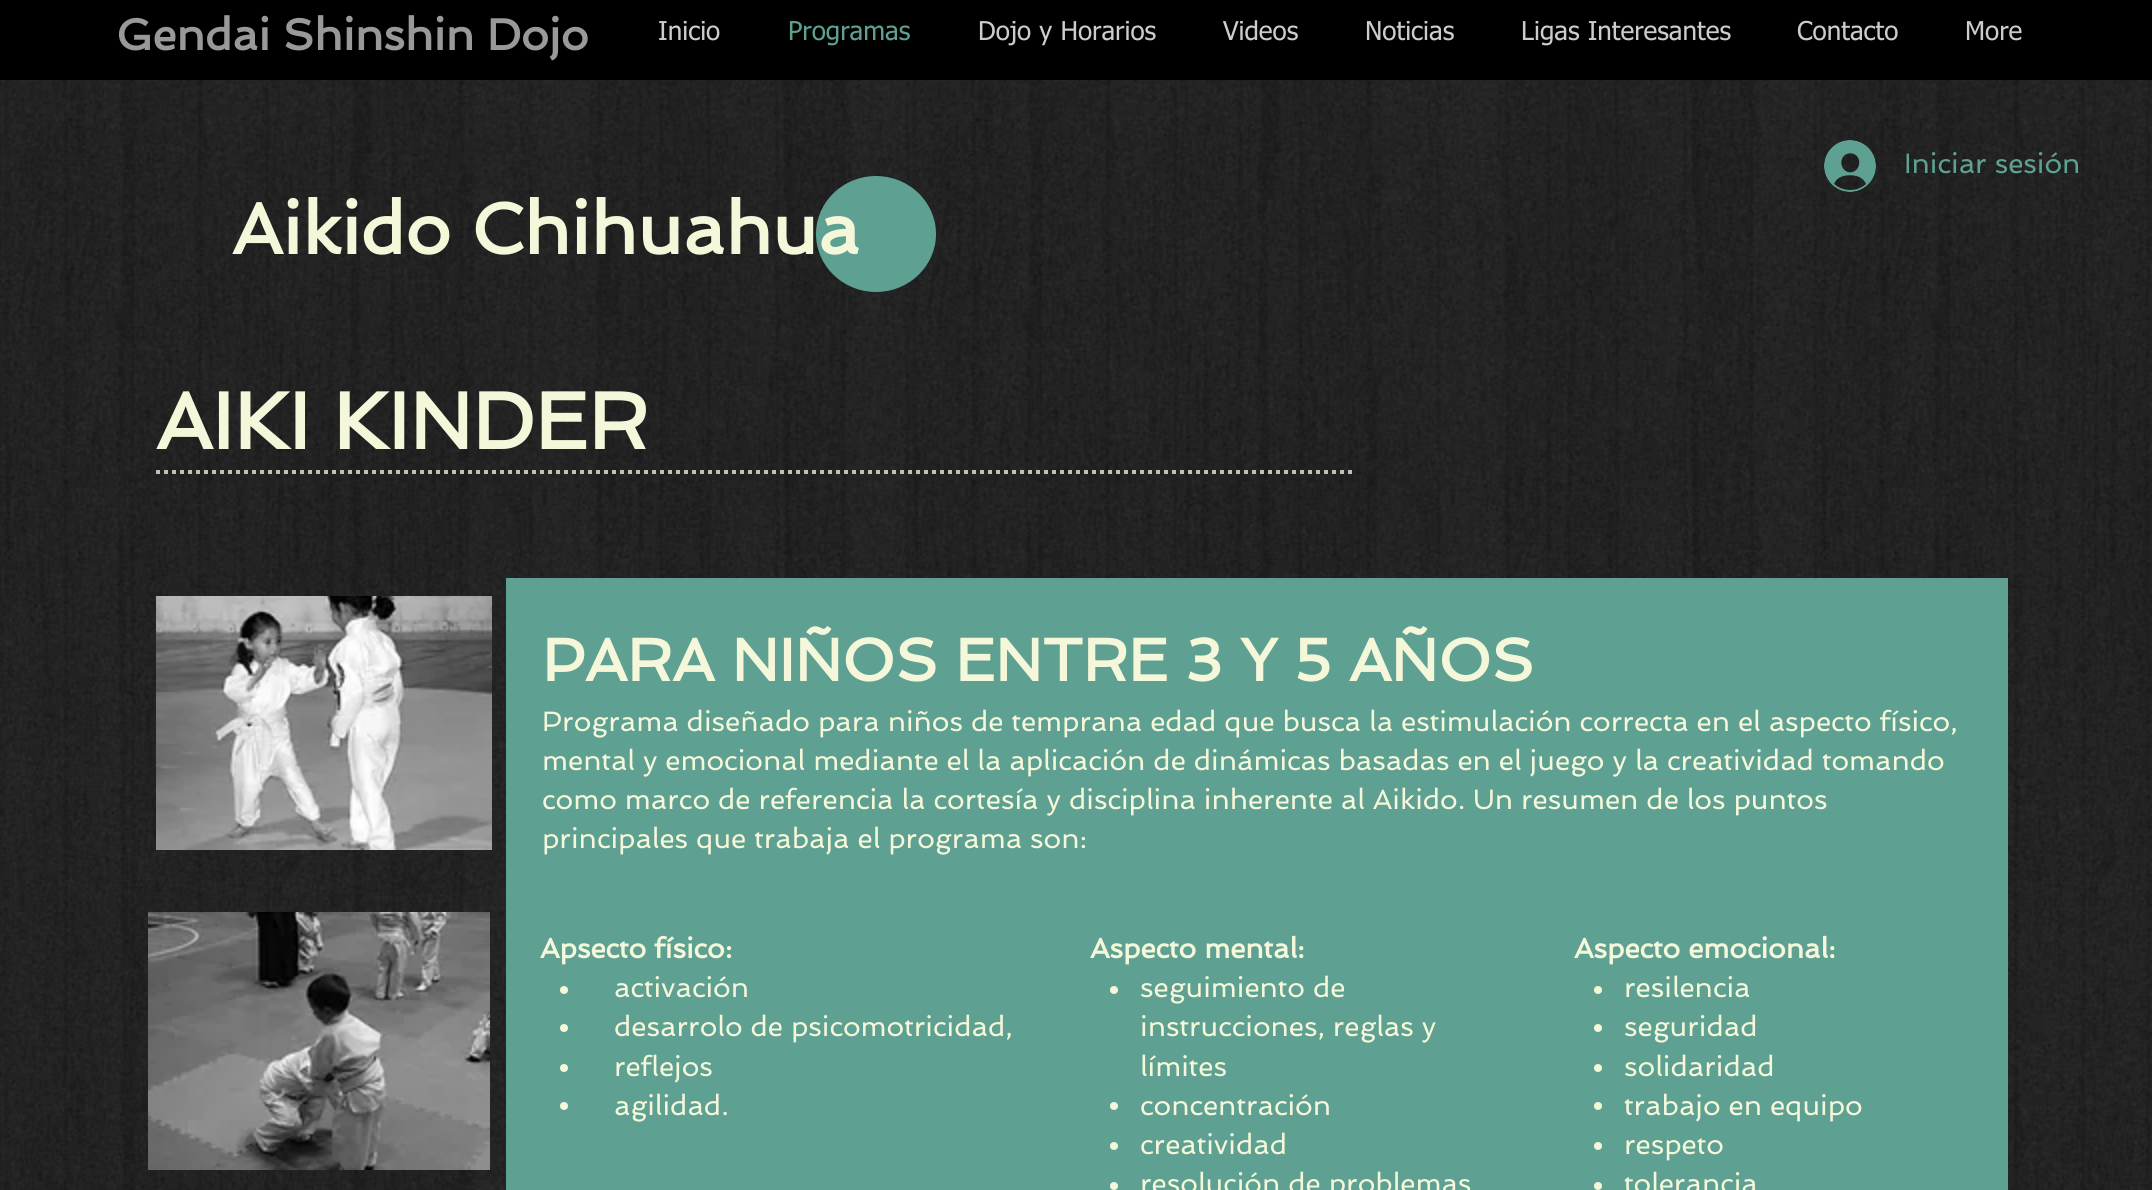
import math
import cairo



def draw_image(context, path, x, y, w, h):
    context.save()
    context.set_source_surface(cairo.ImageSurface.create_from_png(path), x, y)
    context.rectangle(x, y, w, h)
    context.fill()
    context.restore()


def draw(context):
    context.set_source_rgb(1, 1, 1)
    context.paint()
    context.set_source_rgb(0, 0, 0)
    context.rectangle(0, 0, 2152, 80)
    context.fill()
    draw_image(context, "images/4.png", 0, 80, 2152, 1110)
    draw_image(context, "images/1.png", 1824, 140, 52, 52)
    context.set_source_rgb(94 / 255, 160 / 255, 146 / 255)
    context.new_path()
    context.move_to(876, 176)
    context.curve_to(909, 176, 936, 202, 936, 234)
    context.curve_to(936, 266, 909, 292, 876, 292)
    context.curve_to(843, 292, 816, 266, 816, 234)
    context.curve_to(816, 202, 843, 176, 876, 176)
    context.close_path()
    context.fill()
    context.new_path()
    context.move_to(156, 472)
    context.line_to(1356, 472)
    context.set_source_rgb(192 / 255, 193 / 255, 174 / 255)
    context.set_line_width(4)
    context.set_dash([4, 4])
    context.stroke()
    draw_image(context, "images/2.png", 156, 596, 336, 254)
    context.set_source_rgb(94 / 255, 160 / 255, 146 / 255)
    context.rectangle(506, 578, 1502, 612)
    context.fill()
    context.set_source_rgb(244 / 255, 247 / 255, 217 / 255)
    context.arc(564, 990, 4, 0, 2 * math.pi)
    context.fill()
    context.arc(564, 1028, 4, 0, 2 * math.pi)
    context.fill()
    context.arc(564, 1068, 4, 0, 2 * math.pi)
    context.fill()
    context.arc(564, 1106, 4, 0, 2 * math.pi)
    context.fill()
    context.arc(1114, 990, 4, 0, 2 * math.pi)
    context.fill()
    context.arc(1114, 1106, 4, 0, 2 * math.pi)
    context.fill()
    context.arc(1114, 1146, 4, 0, 2 * math.pi)
    context.fill()
    context.arc(1114, 1186, 4, 0, 2 * math.pi)
    context.fill()
    context.arc(1598, 990, 4, 0, 2 * math.pi)
    context.fill()
    context.arc(1598, 1028, 4, 0, 2 * math.pi)
    context.fill()
    context.arc(1598, 1068, 4, 0, 2 * math.pi)
    context.fill()
    context.arc(1598, 1106, 4, 0, 2 * math.pi)
    context.fill()
    context.arc(1598, 1146, 4, 0, 2 * math.pi)
    context.fill()
    context.arc(1598, 1186, 4, 0, 2 * math.pi)
    context.fill()
    draw_image(context, "images/3.png", 148, 912, 342, 258)
    context.select_font_face("Spinnaker", cairo.FontSlant.NORMAL, cairo.FontWeight.BOLD)
    context.set_font_size(44)
    context.set_source_rgb(153 / 255, 153 / 255, 153 / 255)
    context.move_to(116, 50)
    context.show_text("Gendai Shinshin Dojo")
    context.select_font_face("tahoma")
    context.set_font_size(26)
    context.set_source_rgb(204 / 255, 204 / 255, 204 / 255)
    context.move_to(658, 40)
    context.show_text("Inicio")
    context.set_source_rgb(94 / 255, 160 / 255, 146 / 255)
    context.move_to(788, 40)
    context.show_text("Programas")
    context.set_source_rgb(204 / 255, 204 / 255, 204 / 255)
    context.move_to(978, 40)
    context.show_text("Dojo y Horarios")
    context.move_to(1223, 40)
    context.show_text("Videos")
    context.move_to(1365, 40)
    context.show_text("Noticias")
    context.move_to(1521, 40)
    context.show_text("Ligas Interesantes")
    context.move_to(1797, 40)
    context.show_text("Contacto")
    context.move_to(1965, 40)
    context.show_text("More")
    context.select_font_face("Spinnaker")
    context.set_font_size(28)
    context.set_source_rgb(94 / 255, 160 / 255, 146 / 255)
    context.move_to(1904, 173)
    context.show_text("Iniciar sesión")
    context.select_font_face("Spinnaker", cairo.FontSlant.NORMAL, cairo.FontWeight.BOLD)
    context.set_font_size(72)
    context.set_source_rgb(244 / 255, 247 / 255, 217 / 255)
    context.move_to(232, 254)
    context.show_text("Aikido Chihuahua")
    context.set_font_size(80)
    context.move_to(156, 449)
    context.show_text("AIKI KINDER")
    context.set_font_size(60)
    context.move_to(542, 681)
    context.show_text("PARA NIÑOS ENTRE 3 Y 5 AÑOS")
    context.select_font_face("Spinnaker")
    context.set_font_size(28)
    context.move_to(542, 731)
    context.show_text("Programa diseñado para niños de temprana edad que busca la estimulación correcta en el aspecto físico,")
    context.move_to(542, 770)
    context.show_text("mental y emocional mediante el la aplicación de dinámicas basadas en el juego y la creatividad tomando")
    context.move_to(542, 809)
    context.show_text("como marco de referencia la cortesía y disciplina inherente al Aikido. Un resumen de los puntos")
    context.move_to(542, 848)
    context.show_text("principales que trabaja el programa son:")
    context.select_font_face("Spinnaker", cairo.FontSlant.NORMAL, cairo.FontWeight.BOLD)
    context.move_to(540, 958)
    context.show_text("Apsecto físico:")
    context.select_font_face("Spinnaker")
    context.move_to(614, 997)
    context.show_text("activación")
    context.move_to(614, 1036)
    context.show_text("desarrolo de psicomotricidad,")
    context.move_to(614, 1076)
    context.show_text("reflejos")
    context.move_to(614, 1115)
    context.show_text("agilidad.")
    context.select_font_face("Spinnaker", cairo.FontSlant.NORMAL, cairo.FontWeight.BOLD)
    context.move_to(1090, 958)
    context.show_text("Aspecto mental:")
    context.select_font_face("Spinnaker")
    context.move_to(1140, 997)
    context.show_text("seguimiento de")
    context.move_to(1140, 1036)
    context.show_text("instrucciones, reglas y")
    context.move_to(1140, 1076)
    context.show_text("límites")
    context.move_to(1140, 1115)
    context.show_text("concentración")
    context.move_to(1140, 1154)
    context.show_text("creatividad")
    context.move_to(1140, 1193)
    context.show_text("resolución de problemas")
    context.select_font_face("Spinnaker", cairo.FontSlant.NORMAL, cairo.FontWeight.BOLD)
    context.move_to(1574, 958)
    context.show_text("Aspecto emocional:")
    context.select_font_face("Spinnaker")
    context.move_to(1624, 997)
    context.show_text("resilencia")
    context.move_to(1624, 1036)
    context.show_text("seguridad")
    context.move_to(1624, 1076)
    context.show_text("solidaridad")
    context.move_to(1624, 1115)
    context.show_text("trabajo en equipo")
    context.move_to(1624, 1154)
    context.show_text("respeto")
    context.move_to(1624, 1193)
    context.show_text("tolerancia")


surface = cairo.ImageSurface(cairo.Format.RGB24, 2152, 1190)
context = cairo.Context(surface)
options = cairo.FontOptions()
options.set_hint_metrics(cairo.HintMetrics.OFF)
options.set_hint_style(cairo.HintStyle.NONE)
context.set_font_options(options)
context.set_miter_limit(4)
draw(context)
surface.write_to_png("out.png")
